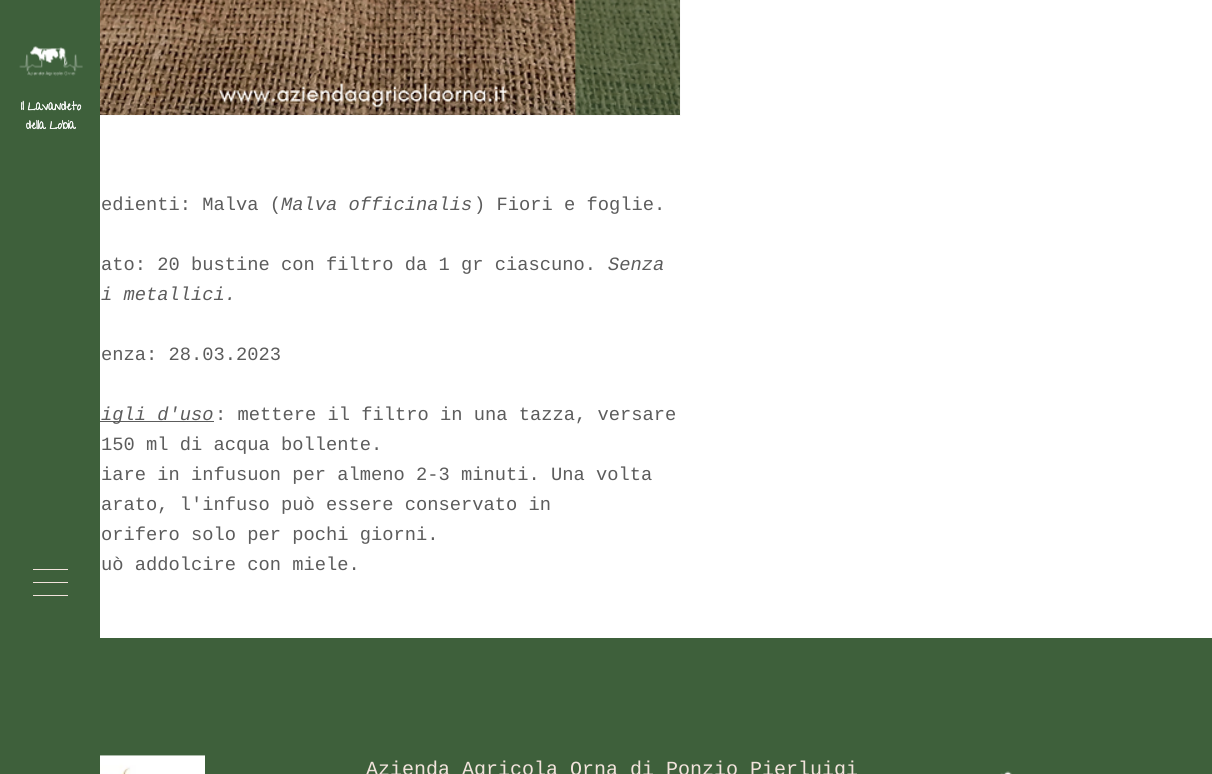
import math
import cairo



def draw_image(context, path, x, y, w, h):
    context.save()
    context.set_source_surface(cairo.ImageSurface.create_from_png(path), x, y)
    context.rectangle(x, y, w, h)
    context.fill()
    context.restore()


def draw(context):
    context.set_source_rgb(1, 1, 1)
    context.paint()
    context.rectangle(56.5, -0.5, 624, 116)
    context.set_source_rgb(250 / 255, 250 / 255, 250 / 255)
    context.set_line_width(1)
    context.stroke()
    context.set_source_rgb(62 / 255, 96 / 255, 59 / 255)
    context.rectangle(0, 0, 100, 774)
    context.fill()
    draw_image(context, "images/1.png", 19, 46, 64, 30)
    draw_image(context, "images/2.png", 21, 100, 61, 30)
    context.set_source_rgb(242 / 255, 227 / 255, 220 / 255)
    context.new_path()
    context.move_to(68, 570)
    context.line_to(33, 570)
    context.line_to(33, 569)
    context.line_to(68, 569)
    context.close_path()
    context.move_to(68, 582)
    context.line_to(33, 582)
    context.line_to(33, 583)
    context.line_to(68, 583)
    context.close_path()
    context.move_to(68, 595)
    context.line_to(33, 595)
    context.line_to(33, 596)
    context.line_to(68, 596)
    context.close_path()
    context.fill()
    draw_image(context, "images/3.png", 100, 0, 580, 115)
    context.set_source_rgb(92 / 255, 92 / 255, 92 / 255)
    context.rectangle(100, 421, 114, 1)
    context.fill()
    context.set_source_rgb(62 / 255, 96 / 255, 59 / 255)
    context.rectangle(100, 638, 1112, 136)
    context.fill()
    draw_image(context, "images/4.png", 100, 755, 105, 19)
    draw_image(context, "images/5.png", 1000, 771, 12, 3)
    context.select_font_face("Liberation Mono")
    context.set_font_size(18.75)
    context.set_source_rgb(92 / 255, 92 / 255, 92 / 255)
    context.move_to(101, 210)
    context.show_text("edienti: Malva (")
    context.select_font_face("Liberation Mono", cairo.FontSlant.ITALIC)
    context.move_to(281, 210)
    context.show_text("Malva officinalis")
    context.select_font_face("Liberation Mono")
    context.move_to(474, 210)
    context.show_text(") Fiori e foglie.")
    context.move_to(101, 270)
    context.show_text("ato: 20 bustine con filtro da 1 gr ciascuno.")
    context.select_font_face("Liberation Mono", cairo.FontSlant.ITALIC)
    context.move_to(608, 270)
    context.show_text("Senza")
    context.move_to(101, 300)
    context.show_text("i metallici.")
    context.select_font_face("Liberation Mono")
    context.move_to(101, 360)
    context.show_text("enza: 28.03.2023")
    context.select_font_face("Liberation Mono", cairo.FontSlant.ITALIC)
    context.move_to(101, 420)
    context.show_text("igli d'uso")
    context.select_font_face("Liberation Mono")
    context.move_to(215, 420)
    context.show_text(": mettere il filtro in una tazza, versare")
    context.move_to(101, 450)
    context.show_text("150 ml di acqua bollente.")
    context.move_to(101, 480)
    context.show_text("iare in infusuon per almeno 2-3 minuti. Una volta")
    context.move_to(101, 510)
    context.show_text("arato, l'infuso può essere conservato in")
    context.move_to(101, 540)
    context.show_text("orifero solo per pochi giorni.")
    context.move_to(101, 570)
    context.show_text("uò addolcire con miele.")
    context.set_font_size(20)
    context.set_source_rgb(242 / 255, 227 / 255, 220 / 255)
    context.move_to(366, 775)
    context.show_text("Azienda Agricola Orna di Ponzio Pierluigi")


surface = cairo.ImageSurface(cairo.Format.RGB24, 1212, 774)
context = cairo.Context(surface)
options = cairo.FontOptions()
options.set_hint_metrics(cairo.HintMetrics.OFF)
options.set_hint_style(cairo.HintStyle.NONE)
context.set_font_options(options)
context.set_miter_limit(4)
draw(context)
surface.write_to_png("out.png")
